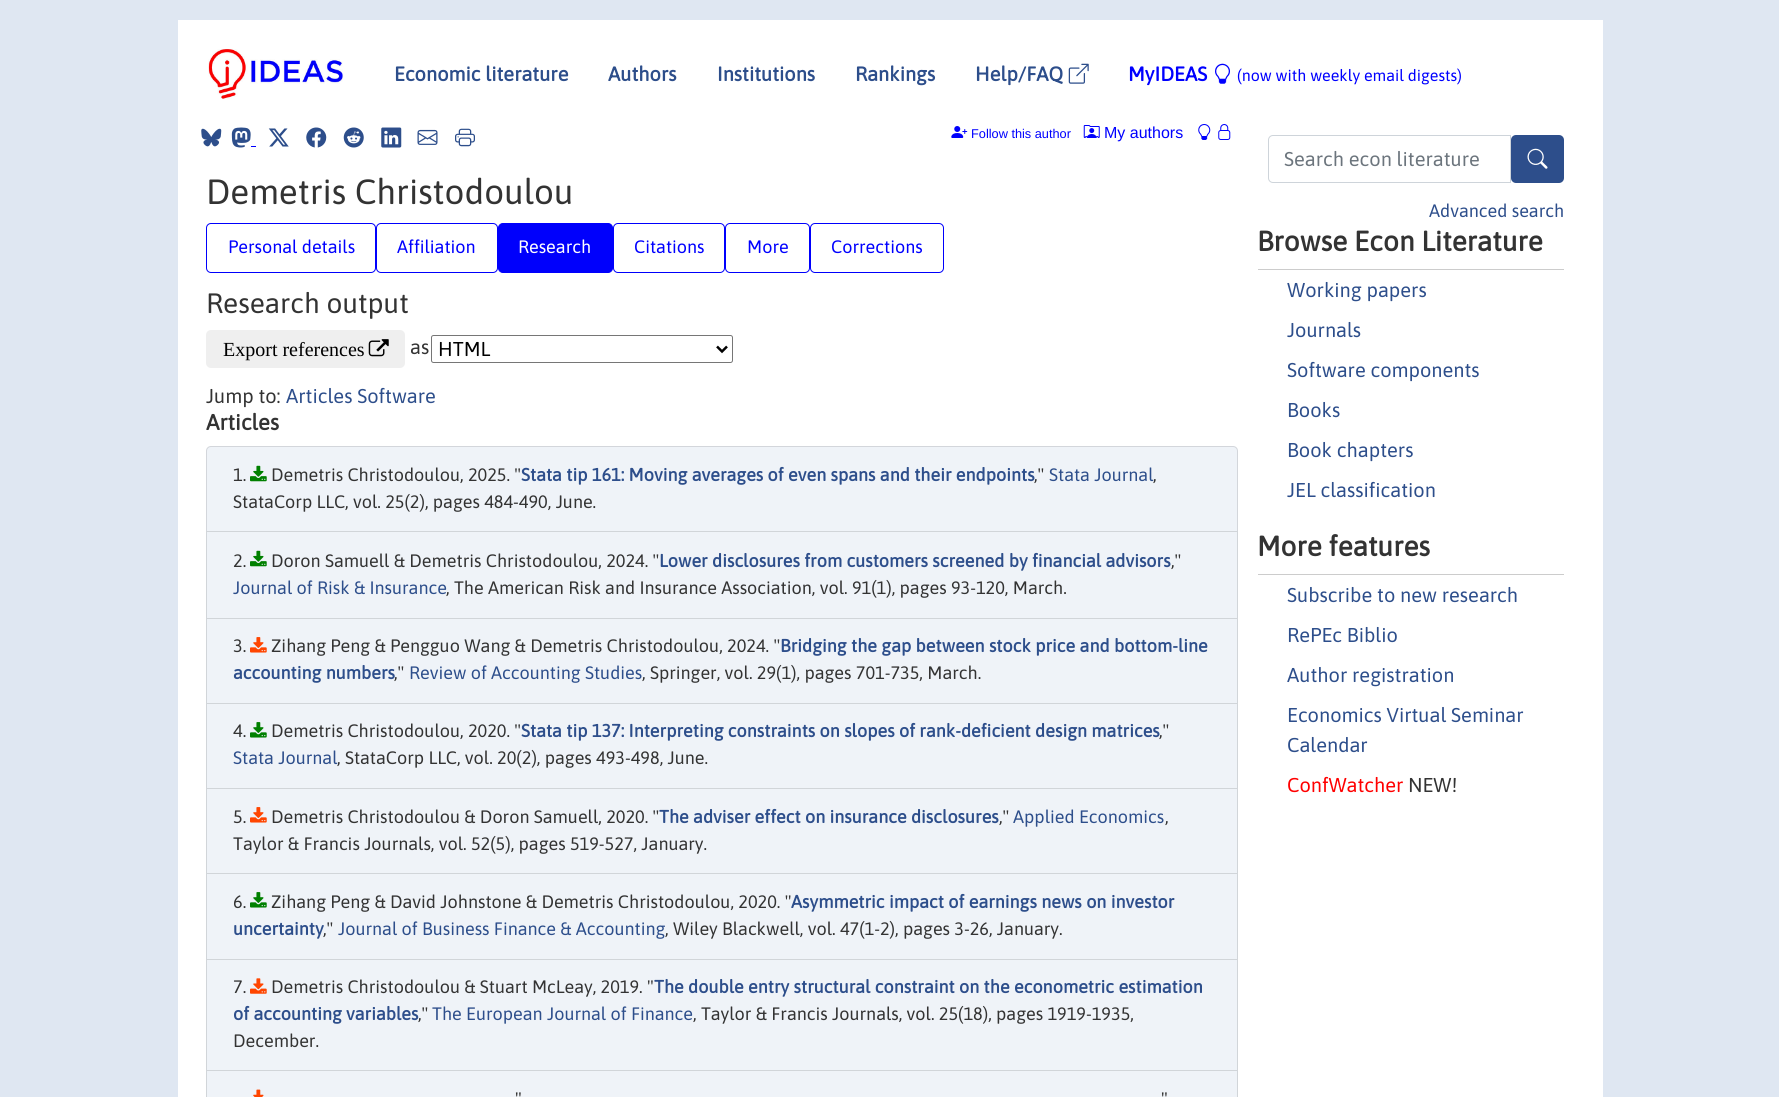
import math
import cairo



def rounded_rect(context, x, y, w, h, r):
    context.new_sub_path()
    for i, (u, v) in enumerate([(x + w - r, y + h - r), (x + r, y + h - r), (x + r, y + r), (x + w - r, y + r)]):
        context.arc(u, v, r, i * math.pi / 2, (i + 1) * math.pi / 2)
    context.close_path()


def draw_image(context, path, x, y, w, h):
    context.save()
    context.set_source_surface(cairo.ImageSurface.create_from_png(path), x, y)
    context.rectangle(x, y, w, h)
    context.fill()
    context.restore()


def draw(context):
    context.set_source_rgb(223 / 255, 231 / 255, 242 / 255)
    context.paint()
    context.set_source_rgb(1, 1, 1)
    context.rectangle(178, 20, 1425, 1077)
    context.fill()
    draw_image(context, "images/1.png", 208, 49, 136, 50)
    draw_image(context, "images/2.png", 1068, 63, 21, 21)
    draw_image(context, "images/3.png", 1215, 63, 15, 21)
    draw_image(context, "images/4.png", 201, 128, 21, 19)
    draw_image(context, "images/5.png", 231, 127, 20, 21)
    context.set_source_rgb(0, 0, 1)
    context.rectangle(251, 146, 5, 1)
    context.fill()
    draw_image(context, "images/6.png", 268, 128, 21, 19)
    draw_image(context, "images/7.png", 306, 127, 21, 21)
    draw_image(context, "images/8.png", 343, 127, 21, 21)
    draw_image(context, "images/9.png", 381, 127, 21, 21)
    draw_image(context, "images/10.png", 417, 129, 21, 16)
    draw_image(context, "images/11.png", 455, 128, 20, 19)
    draw_image(context, "images/12.png", 951, 126, 17, 12)
    draw_image(context, "images/13.png", 1083, 125, 17, 13)
    draw_image(context, "images/14.png", 1198, 124, 13, 16)
    draw_image(context, "images/15.png", 1218, 124, 13, 16)
    rounded_rect(context, 206.5, 223.5, 169, 49, 4.5)
    context.set_source_rgb(0, 0, 252 / 255)
    context.set_line_width(1)
    context.stroke()
    rounded_rect(context, 376.5, 223.5, 121, 49, 4.5)
    context.stroke()
    rounded_rect(context, 498.5, 223.5, 114, 49, 4.5)
    context.fill_preserve()
    context.stroke()
    rounded_rect(context, 613.5, 223.5, 111, 49, 4.5)
    context.stroke()
    rounded_rect(context, 725.5, 223.5, 84, 49, 4.5)
    context.stroke()
    rounded_rect(context, 810.5, 223.5, 133, 49, 4.5)
    context.stroke()
    context.set_source_rgb(239 / 255, 239 / 255, 239 / 255)
    rounded_rect(context, 206, 330, 199, 38, 5)
    context.fill()
    draw_image(context, "images/16.png", 368, 339, 21, 18)
    rounded_rect(context, 431.5, 335.5, 301, 27, 2)
    context.set_source_rgb(118 / 255, 118 / 255, 118 / 255)
    context.stroke()
    context.new_path()
    context.move_to(717, 346.5)
    context.line_to(722, 351.5)
    context.line_to(727, 346.5)
    context.set_source_rgb(0, 0, 0)
    context.set_line_width(2.5)
    context.stroke()
    context.set_source_rgb(239 / 255, 243 / 255, 248 / 255)
    context.new_path()
    context.move_to(211, 446)
    context.line_to(1233, 446)
    context.curve_to(1236, 446, 1238, 448, 1238, 451)
    context.line_to(1238, 533)
    context.line_to(206, 533)
    context.line_to(206, 451)
    context.curve_to(206, 448, 208, 446, 211, 446)
    context.close_path()
    context.fill()
    context.new_path()
    context.move_to(211, 446.5)
    context.line_to(1233, 446.5)
    context.curve_to(1235.5, 446.5, 1237.5, 448.5, 1237.5, 451)
    context.line_to(1237.5, 532.5)
    context.line_to(206.5, 532.5)
    context.line_to(206.5, 451)
    context.curve_to(206.5, 448.5, 208.5, 446.5, 211, 446.5)
    context.close_path()
    context.set_source_rgba(0, 0, 0, 0.12)
    context.set_line_width(1)
    context.stroke()
    draw_image(context, "images/17.png", 250, 465, 17, 17)
    context.set_source_rgb(239 / 255, 243 / 255, 248 / 255)
    context.rectangle(206.5, 531.5, 1031, 87)
    context.fill_preserve()
    context.set_source_rgb(209 / 255, 213 / 255, 217 / 255)
    context.stroke()
    draw_image(context, "images/17.png", 250, 550, 17, 17)
    context.set_source_rgb(239 / 255, 243 / 255, 248 / 255)
    context.rectangle(206.5, 618.5, 1031, 85)
    context.fill_preserve()
    context.set_source_rgb(209 / 255, 213 / 255, 217 / 255)
    context.stroke()
    draw_image(context, "images/18.png", 250, 637, 17, 16)
    context.set_source_rgb(239 / 255, 243 / 255, 248 / 255)
    context.rectangle(206.5, 703.5, 1031, 85)
    context.fill_preserve()
    context.set_source_rgb(209 / 255, 213 / 255, 217 / 255)
    context.stroke()
    draw_image(context, "images/19.png", 250, 722, 17, 16)
    context.set_source_rgb(239 / 255, 243 / 255, 248 / 255)
    context.rectangle(206.5, 788.5, 1031, 85)
    context.fill_preserve()
    context.set_source_rgb(209 / 255, 213 / 255, 217 / 255)
    context.stroke()
    draw_image(context, "images/18.png", 250, 807, 17, 16)
    context.set_source_rgb(239 / 255, 243 / 255, 248 / 255)
    context.rectangle(206.5, 873.5, 1031, 86)
    context.fill_preserve()
    context.set_source_rgb(209 / 255, 213 / 255, 217 / 255)
    context.stroke()
    draw_image(context, "images/19.png", 250, 892, 17, 16)
    context.set_source_rgb(239 / 255, 243 / 255, 248 / 255)
    context.rectangle(206.5, 959.5, 1031, 111)
    context.fill_preserve()
    context.set_source_rgb(209 / 255, 213 / 255, 217 / 255)
    context.stroke()
    draw_image(context, "images/20.png", 250, 978, 17, 16)
    context.set_source_rgb(239 / 255, 243 / 255, 248 / 255)
    context.rectangle(206.5, 1070.5, 1031, 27)
    context.fill_preserve()
    context.set_source_rgb(209 / 255, 213 / 255, 217 / 255)
    context.stroke()
    draw_image(context, "images/21.png", 253, 1089, 11, 8)
    context.new_path()
    context.move_to(1273, 135.5)
    context.line_to(1510.5, 135.5)
    context.line_to(1510.5, 182.5)
    context.line_to(1273, 182.5)
    context.curve_to(1270.5, 182.5, 1268.5, 180.5, 1268.5, 178)
    context.line_to(1268.5, 140)
    context.curve_to(1268.5, 137.5, 1270.5, 135.5, 1273, 135.5)
    context.close_path()
    context.set_source_rgb(206 / 255, 212 / 255, 218 / 255)
    context.stroke()
    context.set_source_rgb(45 / 255, 78 / 255, 139 / 255)
    rounded_rect(context, 1511, 135, 53, 48, 5)
    context.fill()
    draw_image(context, "images/22.png", 1527, 148, 21, 21)
    context.set_source_rgb(204 / 255, 204 / 255, 204 / 255)
    context.rectangle(1258, 269, 306, 1)
    context.fill()
    context.rectangle(1258, 574, 306, 1)
    context.fill()
    context.select_font_face("Asap", cairo.FontSlant.NORMAL, cairo.FontWeight.BOLD)
    context.set_font_size(20)
    context.set_source_rgb(45 / 255, 78 / 255, 139 / 255)
    context.move_to(394, 81)
    context.show_text("Economic literature")
    context.move_to(608, 81)
    context.show_text("Authors")
    context.move_to(717, 81)
    context.show_text("Institutions")
    context.move_to(855, 81)
    context.show_text("Rankings")
    context.move_to(975, 81)
    context.show_text("Help/FAQ")
    context.set_source_rgb(0, 0, 1)
    context.move_to(1128, 81)
    context.show_text("MyIDEAS")
    context.select_font_face("Asap")
    context.set_font_size(16)
    context.move_to(1237, 81)
    context.show_text("(now with weekly email digests)")
    context.select_font_face("Liberation Sans")
    context.set_font_size(12.75)
    context.move_to(971, 138)
    context.show_text("Follow this author")
    context.set_font_size(16)
    context.move_to(1104, 138)
    context.show_text("My authors")
    context.select_font_face("Asap")
    context.set_font_size(35)
    context.set_source_rgb(51 / 255, 51 / 255, 51 / 255)
    context.move_to(206, 204)
    context.show_text("Demetris Christodoulou")
    context.set_font_size(18)
    context.set_source_rgb(0, 0, 1)
    context.move_to(228, 253)
    context.show_text("Personal details")
    context.move_to(397, 253)
    context.show_text("Affiliation")
    context.set_source_rgb(1, 1, 1)
    context.move_to(518, 253)
    context.show_text("Research")
    context.set_source_rgb(0, 0, 1)
    context.move_to(634, 253)
    context.show_text("Citations")
    context.move_to(747, 253)
    context.show_text("More")
    context.move_to(831, 253)
    context.show_text("Corrections")
    context.set_font_size(28)
    context.set_source_rgb(51 / 255, 51 / 255, 51 / 255)
    context.move_to(206, 313)
    context.show_text("Research output")
    context.select_font_face("Liberation Serif")
    context.set_font_size(20)
    context.set_source_rgb(0, 0, 0)
    context.move_to(223, 356)
    context.show_text("Export references")
    context.select_font_face("Asap")
    context.set_source_rgb(51 / 255, 51 / 255, 51 / 255)
    context.move_to(410, 354)
    context.show_text("as")
    context.set_source_rgb(0, 0, 0)
    context.move_to(438, 356)
    context.show_text("HTML")
    context.set_source_rgb(51 / 255, 51 / 255, 51 / 255)
    context.move_to(206, 403)
    context.show_text("Jump to:")
    context.set_source_rgb(45 / 255, 78 / 255, 139 / 255)
    context.move_to(286, 403)
    context.show_text("Articles Software")
    context.select_font_face("Asap", cairo.FontSlant.NORMAL, cairo.FontWeight.BOLD)
    context.set_font_size(22)
    context.set_source_rgb(51 / 255, 51 / 255, 51 / 255)
    context.move_to(206, 430)
    context.show_text("Articles")
    context.select_font_face("Asap")
    context.set_font_size(18)
    context.move_to(233, 481)
    context.show_text("1.")
    context.move_to(271, 481)
    context.show_text("Demetris Christodoulou, 2025. \"")
    context.select_font_face("Asap", cairo.FontSlant.NORMAL, cairo.FontWeight.BOLD)
    context.set_source_rgb(45 / 255, 78 / 255, 139 / 255)
    context.move_to(521, 481)
    context.show_text("Stata tip 161: Moving averages of even spans and their endpoints")
    context.select_font_face("Asap")
    context.set_source_rgb(51 / 255, 51 / 255, 51 / 255)
    context.move_to(1034, 481)
    context.show_text(",\"")
    context.set_source_rgb(45 / 255, 78 / 255, 139 / 255)
    context.move_to(1049, 481)
    context.show_text("Stata Journal")
    context.set_source_rgb(51 / 255, 51 / 255, 51 / 255)
    context.move_to(1153, 481)
    context.show_text(",")
    context.move_to(233, 508)
    context.show_text("StataCorp LLC, vol. 25(2), pages 484-490, June.")
    context.move_to(233, 567)
    context.show_text("2.")
    context.move_to(271, 567)
    context.show_text("Doron Samuell & Demetris Christodoulou, 2024. \"")
    context.select_font_face("Asap", cairo.FontSlant.NORMAL, cairo.FontWeight.BOLD)
    context.set_source_rgb(45 / 255, 78 / 255, 139 / 255)
    context.move_to(659, 567)
    context.show_text("Lower disclosures from customers screened by financial advisors")
    context.select_font_face("Asap")
    context.set_source_rgb(51 / 255, 51 / 255, 51 / 255)
    context.move_to(1171, 567)
    context.show_text(",\"")
    context.set_source_rgb(45 / 255, 78 / 255, 139 / 255)
    context.move_to(233, 594)
    context.show_text("Journal of Risk & Insurance")
    context.set_source_rgb(51 / 255, 51 / 255, 51 / 255)
    context.move_to(446, 594)
    context.show_text(", The American Risk and Insurance Association, vol. 91(1), pages 93-120, March.")
    context.move_to(233, 652)
    context.show_text("3.")
    context.move_to(271, 652)
    context.show_text("Zihang Peng & Pengguo Wang & Demetris Christodoulou, 2024. \"")
    context.select_font_face("Asap", cairo.FontSlant.NORMAL, cairo.FontWeight.BOLD)
    context.set_source_rgb(45 / 255, 78 / 255, 139 / 255)
    context.move_to(780, 652)
    context.show_text("Bridging the gap between stock price and bottom-line")
    context.move_to(233, 679)
    context.show_text("accounting numbers")
    context.select_font_face("Asap")
    context.set_source_rgb(51 / 255, 51 / 255, 51 / 255)
    context.move_to(394, 679)
    context.show_text(",\"")
    context.set_source_rgb(45 / 255, 78 / 255, 139 / 255)
    context.move_to(409, 679)
    context.show_text("Review of Accounting Studies")
    context.set_source_rgb(51 / 255, 51 / 255, 51 / 255)
    context.move_to(642, 679)
    context.show_text(", Springer, vol. 29(1), pages 701-735, March.")
    context.move_to(233, 737)
    context.show_text("4.")
    context.move_to(271, 737)
    context.show_text("Demetris Christodoulou, 2020. \"")
    context.select_font_face("Asap", cairo.FontSlant.NORMAL, cairo.FontWeight.BOLD)
    context.set_source_rgb(45 / 255, 78 / 255, 139 / 255)
    context.move_to(521, 737)
    context.show_text("Stata tip 137: Interpreting constraints on slopes of rank-deficient design matrices")
    context.select_font_face("Asap")
    context.set_source_rgb(51 / 255, 51 / 255, 51 / 255)
    context.move_to(1159, 737)
    context.show_text(",\"")
    context.set_source_rgb(45 / 255, 78 / 255, 139 / 255)
    context.move_to(233, 764)
    context.show_text("Stata Journal")
    context.set_source_rgb(51 / 255, 51 / 255, 51 / 255)
    context.move_to(337, 764)
    context.show_text(", StataCorp LLC, vol. 20(2), pages 493-498, June.")
    context.move_to(233, 823)
    context.show_text("5.")
    context.move_to(271, 823)
    context.show_text("Demetris Christodoulou & Doron Samuell, 2020. \"")
    context.select_font_face("Asap", cairo.FontSlant.NORMAL, cairo.FontWeight.BOLD)
    context.set_source_rgb(45 / 255, 78 / 255, 139 / 255)
    context.move_to(659, 823)
    context.show_text("The adviser effect on insurance disclosures")
    context.select_font_face("Asap")
    context.set_source_rgb(51 / 255, 51 / 255, 51 / 255)
    context.move_to(999, 823)
    context.show_text(",\"")
    context.set_source_rgb(45 / 255, 78 / 255, 139 / 255)
    context.move_to(1013, 823)
    context.show_text("Applied Economics")
    context.set_source_rgb(51 / 255, 51 / 255, 51 / 255)
    context.move_to(1165, 823)
    context.show_text(",")
    context.move_to(233, 850)
    context.show_text("Taylor & Francis Journals, vol. 52(5), pages 519-527, January.")
    context.move_to(233, 908)
    context.show_text("6.")
    context.move_to(271, 908)
    context.show_text("Zihang Peng & David Johnstone & Demetris Christodoulou, 2020. \"")
    context.select_font_face("Asap", cairo.FontSlant.NORMAL, cairo.FontWeight.BOLD)
    context.set_source_rgb(45 / 255, 78 / 255, 139 / 255)
    context.move_to(791, 908)
    context.show_text("Asymmetric impact of earnings news on investor")
    context.move_to(233, 935)
    context.show_text("uncertainty")
    context.select_font_face("Asap")
    context.set_source_rgb(51 / 255, 51 / 255, 51 / 255)
    context.move_to(323, 935)
    context.show_text(",\"")
    context.set_source_rgb(45 / 255, 78 / 255, 139 / 255)
    context.move_to(338, 935)
    context.show_text("Journal of Business Finance & Accounting")
    context.set_source_rgb(51 / 255, 51 / 255, 51 / 255)
    context.move_to(665, 935)
    context.show_text(", Wiley Blackwell, vol. 47(1-2), pages 3-26, January.")
    context.move_to(233, 993)
    context.show_text("7.")
    context.move_to(271, 993)
    context.show_text("Demetris Christodoulou & Stuart McLeay, 2019. \"")
    context.select_font_face("Asap", cairo.FontSlant.NORMAL, cairo.FontWeight.BOLD)
    context.set_source_rgb(45 / 255, 78 / 255, 139 / 255)
    context.move_to(654, 993)
    context.show_text("The double entry structural constraint on the econometric estimation")
    context.move_to(233, 1020)
    context.show_text("of accounting variables")
    context.select_font_face("Asap")
    context.set_source_rgb(51 / 255, 51 / 255, 51 / 255)
    context.move_to(418, 1020)
    context.show_text(",\"")
    context.set_source_rgb(45 / 255, 78 / 255, 139 / 255)
    context.move_to(432, 1020)
    context.show_text("The European Journal of Finance")
    context.set_source_rgb(51 / 255, 51 / 255, 51 / 255)
    context.move_to(693, 1020)
    context.show_text(", Taylor & Francis Journals, vol. 25(18), pages 1919-1935,")
    context.move_to(233, 1047)
    context.show_text("December.")
    context.move_to(515, 1105)
    context.show_text("\"")
    context.move_to(1161, 1105)
    context.show_text("\"")
    context.set_font_size(20)
    context.set_source_rgb(108 / 255, 117 / 255, 125 / 255)
    context.move_to(1284, 166)
    context.show_text("Search econ literature")
    context.set_font_size(18)
    context.set_source_rgb(45 / 255, 78 / 255, 139 / 255)
    context.move_to(1429, 217)
    context.show_text("Advanced search")
    context.select_font_face("Asap", cairo.FontSlant.NORMAL, cairo.FontWeight.BOLD)
    context.set_font_size(28)
    context.set_source_rgb(51 / 255, 51 / 255, 51 / 255)
    context.move_to(1257, 251)
    context.show_text("Browse Econ Literature")
    context.select_font_face("Asap")
    context.set_font_size(20)
    context.set_source_rgb(45 / 255, 78 / 255, 139 / 255)
    context.move_to(1287, 297)
    context.show_text("Working papers")
    context.move_to(1287, 337)
    context.show_text("Journals")
    context.move_to(1287, 377)
    context.show_text("Software components")
    context.move_to(1287, 417)
    context.show_text("Books")
    context.move_to(1287, 457)
    context.show_text("Book chapters")
    context.move_to(1287, 497)
    context.show_text("JEL classification")
    context.select_font_face("Asap", cairo.FontSlant.NORMAL, cairo.FontWeight.BOLD)
    context.set_font_size(28)
    context.set_source_rgb(51 / 255, 51 / 255, 51 / 255)
    context.move_to(1257, 556)
    context.show_text("More features")
    context.select_font_face("Asap")
    context.set_font_size(20)
    context.set_source_rgb(45 / 255, 78 / 255, 139 / 255)
    context.move_to(1287, 602)
    context.show_text("Subscribe to new research")
    context.move_to(1287, 642)
    context.show_text("RePEc Biblio")
    context.move_to(1287, 682)
    context.show_text("Author registration")
    context.move_to(1287, 722)
    context.show_text("Economics Virtual Seminar")
    context.move_to(1287, 752)
    context.show_text("Calendar")
    context.set_source_rgb(1, 0, 0)
    context.move_to(1287, 792)
    context.show_text("ConfWatcher")
    context.set_source_rgb(51 / 255, 51 / 255, 51 / 255)
    context.move_to(1408, 792)
    context.show_text("NEW!")


surface = cairo.ImageSurface(cairo.Format.RGB24, 1779, 1097)
context = cairo.Context(surface)
options = cairo.FontOptions()
options.set_hint_metrics(cairo.HintMetrics.OFF)
options.set_hint_style(cairo.HintStyle.NONE)
context.set_font_options(options)
context.set_miter_limit(4)
draw(context)
surface.write_to_png("out.png")
